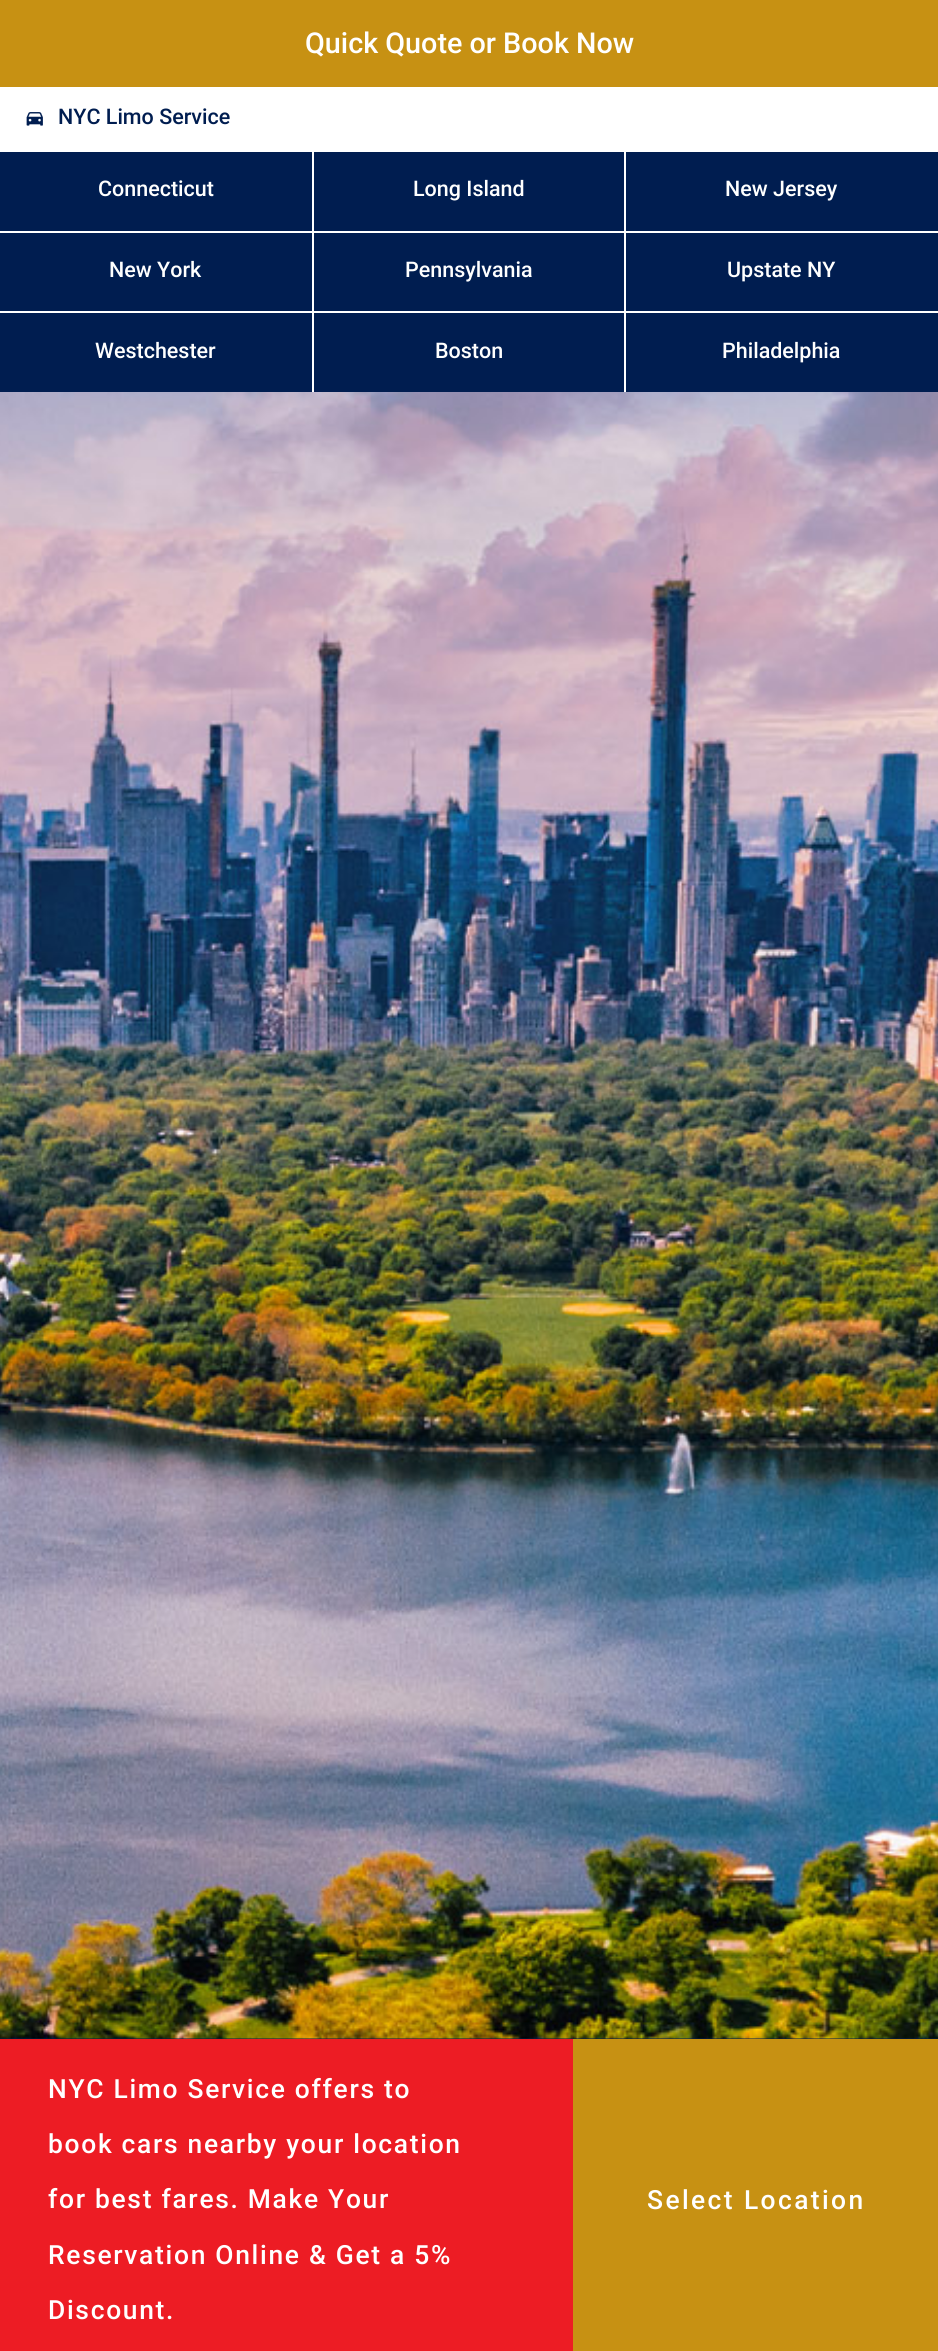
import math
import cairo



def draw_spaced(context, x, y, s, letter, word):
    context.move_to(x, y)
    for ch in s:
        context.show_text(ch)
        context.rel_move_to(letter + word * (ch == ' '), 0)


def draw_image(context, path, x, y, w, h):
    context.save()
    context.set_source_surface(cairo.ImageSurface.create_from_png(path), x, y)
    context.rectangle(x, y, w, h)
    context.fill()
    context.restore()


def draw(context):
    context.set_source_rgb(1, 1, 1)
    context.paint()
    context.set_source_rgb(199 / 255, 145 / 255, 19 / 255)
    context.rectangle(0, 0, 938, 87)
    context.fill()
    draw_image(context, "images/1.png", 26, 112, 17, 14)
    context.set_source_rgb(0, 29 / 255, 80 / 255)
    context.rectangle(0, 152, 938, 240)
    context.fill()
    context.set_source_rgb(1, 1, 1)
    context.rectangle(312, 152, 2, 160)
    context.fill()
    context.rectangle(0, 231, 314, 2)
    context.fill()
    context.rectangle(624, 152, 2, 160)
    context.fill()
    context.rectangle(314, 231, 624, 2)
    context.fill()
    context.rectangle(0, 311, 938, 2)
    context.fill()
    context.rectangle(312, 312, 2, 80)
    context.fill()
    context.rectangle(624, 312, 2, 80)
    context.fill()
    context.set_source_rgb(0, 29 / 255, 80 / 255)
    context.rectangle(0, 2038, 938, 1)
    context.fill()
    draw_image(context, "images/2.png", 0, 392, 938, 1647)
    context.set_source_rgb(237 / 255, 28 / 255, 36 / 255)
    context.rectangle(0, 2039, 573, 312)
    context.fill()
    context.set_source_rgb(199 / 255, 145 / 255, 19 / 255)
    context.rectangle(573, 2039, 365, 312)
    context.fill()
    context.select_font_face("Roboto Medium")
    context.set_font_size(28.75)
    context.set_source_rgb(1, 1, 1)
    context.move_to(305, 53)
    context.show_text("Quick Quote or Book Now")
    context.set_font_size(21.5)
    context.set_source_rgb(0, 29 / 255, 80 / 255)
    context.move_to(58, 124)
    context.show_text("NYC Limo Service")
    context.set_source_rgb(1, 1, 1)
    context.move_to(98, 196)
    context.show_text("Connecticut")
    context.move_to(413, 196)
    context.show_text("Long Island")
    context.move_to(725, 196)
    context.show_text("New Jersey")
    context.move_to(109, 277)
    context.show_text("New York")
    context.move_to(405, 277)
    context.show_text("Pennsylvania")
    context.move_to(727, 277)
    context.show_text("Upstate NY")
    context.move_to(95, 358)
    context.show_text("Westchester")
    context.move_to(435, 358)
    context.show_text("Boston")
    context.move_to(722, 358)
    context.show_text("Philadelphia")
    context.set_font_size(26.4)
    draw_spaced(context, 48, 2098, "NYC Limo Service offers to", 1.7, 0)
    draw_spaced(context, 48, 2153, "book cars nearby your location", 1.7, 0)
    draw_spaced(context, 48, 2208, "for best fares. Make Your", 1.7, 0)
    draw_spaced(context, 48, 2264, "Reservation Online & Get a 5%", 1.7, 0)
    draw_spaced(context, 48, 2319, "Discount.", 1.7, 0)
    draw_spaced(context, 647, 2209, "Select Location", 2.4, 0)


surface = cairo.ImageSurface(cairo.Format.RGB24, 938, 2351)
context = cairo.Context(surface)
options = cairo.FontOptions()
options.set_hint_metrics(cairo.HintMetrics.OFF)
options.set_hint_style(cairo.HintStyle.NONE)
context.set_font_options(options)
context.set_miter_limit(4)
draw(context)
surface.write_to_png("out.png")
